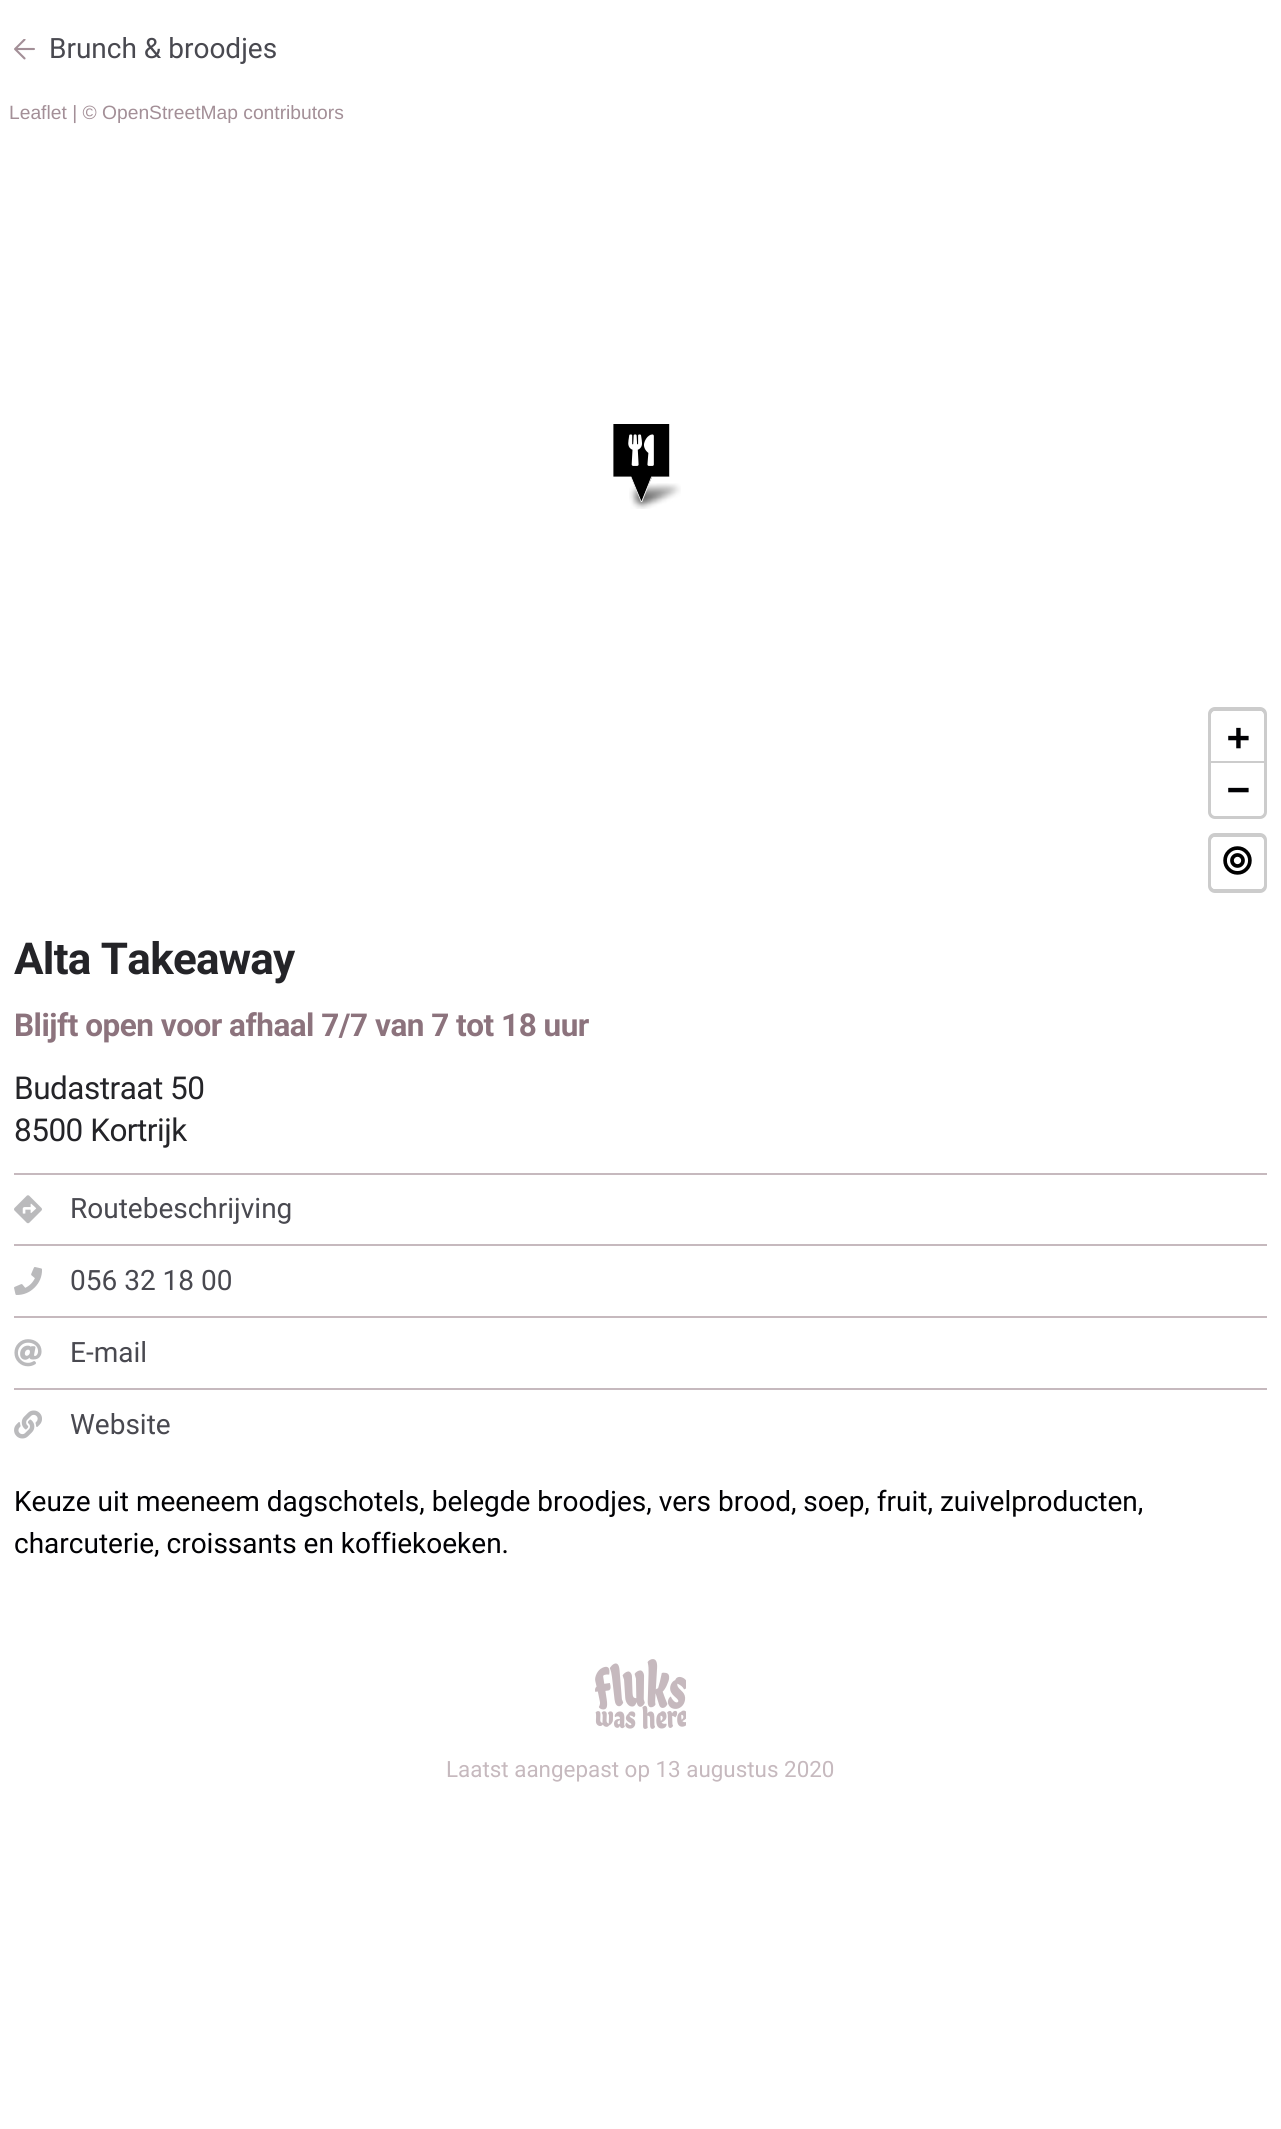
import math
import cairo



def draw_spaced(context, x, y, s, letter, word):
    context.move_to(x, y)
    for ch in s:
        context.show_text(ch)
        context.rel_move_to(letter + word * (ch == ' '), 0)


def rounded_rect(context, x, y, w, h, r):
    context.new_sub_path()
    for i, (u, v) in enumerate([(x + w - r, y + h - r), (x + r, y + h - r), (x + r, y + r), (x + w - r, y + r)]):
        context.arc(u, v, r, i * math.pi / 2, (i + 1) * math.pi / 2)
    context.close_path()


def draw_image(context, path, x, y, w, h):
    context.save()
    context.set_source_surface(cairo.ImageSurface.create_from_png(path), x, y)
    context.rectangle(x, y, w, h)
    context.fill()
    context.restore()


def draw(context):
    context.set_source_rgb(1, 1, 1)
    context.paint()
    draw_image(context, "images/1.png", 14, 39, 21, 21)
    rounded_rect(context, 1210, 709, 55, 108, 5)
    context.set_source_rgb(204 / 255, 204 / 255, 204 / 255)
    context.set_line_width(4)
    context.stroke()
    context.set_source_rgb(1, 1, 1)
    context.new_path()
    context.move_to(1215, 711)
    context.line_to(1260, 711)
    context.curve_to(1262, 711, 1264, 713, 1264, 715)
    context.line_to(1264, 763)
    context.line_to(1211, 763)
    context.line_to(1211, 715)
    context.curve_to(1211, 713, 1213, 711, 1215, 711)
    context.close_path()
    context.fill()
    context.set_source_rgb(204 / 255, 204 / 255, 204 / 255)
    context.rectangle(1211, 761, 53, 2)
    context.fill()
    context.set_source_rgb(1, 1, 1)
    context.new_path()
    context.move_to(1211, 763)
    context.line_to(1264, 763)
    context.line_to(1264, 812)
    context.curve_to(1264, 814, 1262, 816, 1260, 816)
    context.line_to(1215, 816)
    context.curve_to(1213, 816, 1211, 814, 1211, 812)
    context.close_path()
    context.fill()
    rounded_rect(context, 1210, 835, 55, 56, 5)
    context.set_source_rgb(204 / 255, 204 / 255, 204 / 255)
    context.stroke()
    context.set_source_rgb(1, 1, 1)
    rounded_rect(context, 1211, 837, 53, 52, 4)
    context.fill()
    draw_image(context, "images/2.png", 1223, 846, 29, 29)
    draw_image(context, "images/4.png", 629, 483, 52, 26)
    context.save()
    context.rectangle(611, 424, 61, 78)
    context.clip()
    context.set_source_rgb(0, 0, 0)
    context.new_path()
    context.move_to(613, 423)
    context.line_to(613, 477)
    context.line_to(631, 477)
    context.line_to(641, 502)
    context.line_to(652, 477)
    context.line_to(670, 477)
    context.line_to(670, 423)
    context.close_path()
    context.fill()
    context.new_path()
    context.move_to(613, 423.5)
    context.line_to(613, 477)
    context.line_to(631, 477)
    context.line_to(641.5, 502.5)
    context.line_to(651.5, 477)
    context.line_to(669.5, 477)
    context.line_to(669.5, 423.5)
    context.close_path()
    context.set_source_rgb(1, 1, 1)
    context.set_line_width(0.8)
    context.stroke()
    context.restore()
    draw_image(context, "images/3.png", 628, 434, 26, 32)
    context.set_source_rgb(198 / 255, 185 / 255, 190 / 255)
    context.rectangle(14, 1173, 1253, 2)
    context.fill()
    context.rectangle(14, 1244, 1253, 2)
    context.fill()
    draw_image(context, "images/5.png", 14, 1195, 28, 29)
    context.rectangle(14, 1316, 1253, 2)
    context.fill()
    draw_image(context, "images/6.png", 14, 1267, 28, 28)
    context.rectangle(14, 1388, 1253, 2)
    context.fill()
    draw_image(context, "images/7.png", 14, 1339, 28, 28)
    draw_image(context, "images/8.png", 14, 1410, 28, 29)
    draw_image(context, "images/9.png", 595, 1659, 91, 70)
    context.select_font_face("Roboto")
    context.set_font_size(28)
    context.set_source_rgb(73 / 255, 73 / 255, 80 / 255)
    context.move_to(49, 58)
    context.show_text("Brunch & broodjes")
    context.select_font_face("Liberation Sans")
    context.set_font_size(19.25)
    context.set_source_rgb(163 / 255, 143 / 255, 151 / 255)
    context.move_to(9, 119)
    context.show_text("Leaflet | © OpenStreetMap contributors")
    context.select_font_face("DejaVu Sans Mono", cairo.FontSlant.NORMAL, cairo.FontWeight.BOLD)
    context.set_font_size(38)
    context.set_source_rgb(1 / 255, 1 / 255, 4 / 255)
    context.move_to(1227, 750)
    context.show_text("+")
    context.move_to(1227, 802)
    context.show_text("−")
    context.select_font_face("Roboto", cairo.FontSlant.NORMAL, cairo.FontWeight.BOLD)
    context.set_font_size(44)
    context.set_source_rgb(36 / 255, 36 / 255, 40 / 255)
    draw_spaced(context, 14, 974, "Alta Takeaway", -0.75, 0)
    context.set_font_size(31.5)
    context.set_source_rgb(140 / 255, 115 / 255, 125 / 255)
    draw_spaced(context, 14, 1036, "Blijft open voor afhaal 7/7 van 7 tot 18 uur", -0.5, 0)
    context.select_font_face("Roboto")
    context.set_source_rgb(36 / 255, 36 / 255, 40 / 255)
    draw_spaced(context, 14, 1099, "Budastraat 50", -0.5, 0)
    draw_spaced(context, 14, 1141, "8500 Kortrijk", -0.5, 0)
    context.set_font_size(28)
    context.set_source_rgb(73 / 255, 73 / 255, 80 / 255)
    context.move_to(70, 1218)
    context.show_text("Routebeschrijving")
    context.move_to(70, 1290)
    context.show_text("056 32 18 00")
    context.move_to(70, 1362)
    context.show_text("E-mail")
    context.move_to(70, 1434)
    context.show_text("Website")
    context.set_source_rgb(1 / 255, 1 / 255, 4 / 255)
    context.move_to(14, 1511)
    context.show_text("Keuze uit meeneem dagschotels, belegde broodjes, vers brood, soep, fruit, zuivelproducten,")
    context.move_to(14, 1553)
    context.show_text("charcuterie, croissants en koffiekoeken.")
    context.set_font_size(22.4)
    context.set_source_rgb(198 / 255, 185 / 255, 190 / 255)
    context.move_to(446, 1777)
    context.show_text("Laatst aangepast op 13 augustus 2020")


surface = cairo.ImageSurface(cairo.Format.RGB24, 1281, 2129)
context = cairo.Context(surface)
options = cairo.FontOptions()
options.set_hint_metrics(cairo.HintMetrics.OFF)
options.set_hint_style(cairo.HintStyle.NONE)
context.set_font_options(options)
context.set_miter_limit(4)
draw(context)
surface.write_to_png("out.png")
